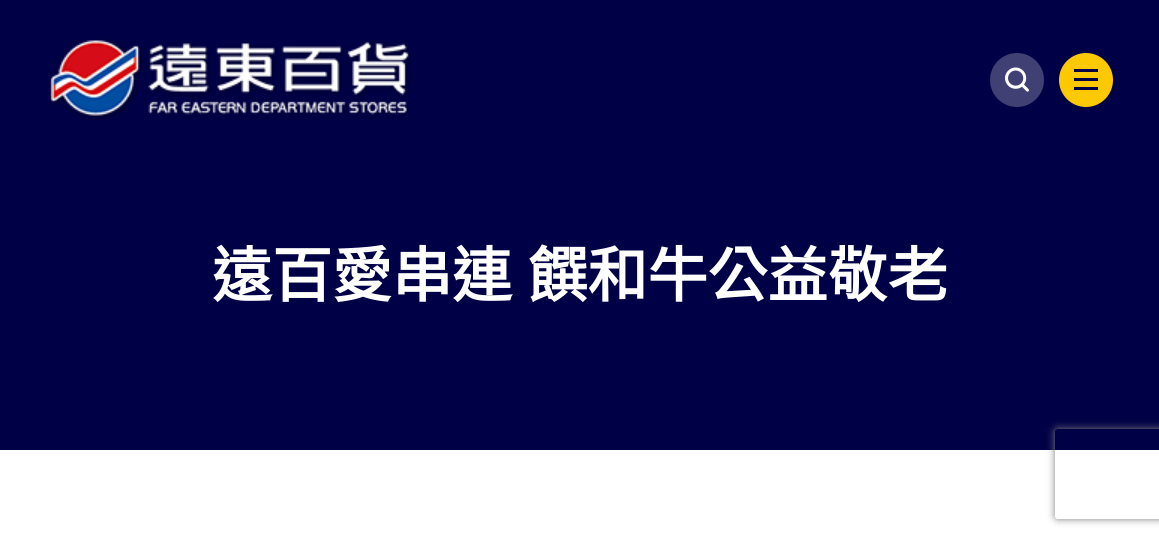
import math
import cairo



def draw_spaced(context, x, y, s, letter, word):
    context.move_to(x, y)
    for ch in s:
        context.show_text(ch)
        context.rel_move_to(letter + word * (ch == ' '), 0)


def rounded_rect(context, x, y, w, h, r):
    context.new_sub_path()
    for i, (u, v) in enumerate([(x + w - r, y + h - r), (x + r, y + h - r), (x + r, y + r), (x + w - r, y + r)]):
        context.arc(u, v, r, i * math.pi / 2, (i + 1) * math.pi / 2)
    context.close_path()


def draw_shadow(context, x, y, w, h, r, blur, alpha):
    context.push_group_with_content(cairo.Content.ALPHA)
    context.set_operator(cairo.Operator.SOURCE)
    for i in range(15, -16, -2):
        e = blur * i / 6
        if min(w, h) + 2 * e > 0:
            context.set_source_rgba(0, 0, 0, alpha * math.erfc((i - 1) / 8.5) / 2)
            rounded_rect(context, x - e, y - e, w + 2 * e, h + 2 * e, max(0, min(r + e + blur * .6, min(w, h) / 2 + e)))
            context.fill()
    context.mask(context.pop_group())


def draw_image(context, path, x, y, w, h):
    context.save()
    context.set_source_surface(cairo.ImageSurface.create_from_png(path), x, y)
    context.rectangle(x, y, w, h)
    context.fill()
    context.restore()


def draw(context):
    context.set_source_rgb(1, 1, 1)
    context.paint()
    context.set_source_rgb(0, 0, 70 / 255)
    context.rectangle(0, 0, 1159, 450)
    context.fill()
    draw_image(context, "images/1.png", 49, 39, 362, 81)
    context.set_source_rgb(64 / 255, 64 / 255, 116 / 255)
    context.arc(1017, 80, 27, 0, 2 * math.pi)
    context.fill()
    draw_image(context, "images/2.png", 1005, 67, 24, 25)
    context.set_source_rgb(252 / 255, 200 / 255, 0)
    context.arc(1086, 80, 27, 0, 2 * math.pi)
    context.fill()
    context.set_source_rgb(0, 0, 70 / 255)
    context.rectangle(1074, 69, 24, 3)
    context.fill()
    context.rectangle(1074, 78, 24, 3)
    context.fill()
    context.rectangle(1074, 87, 24, 3)
    context.fill()
    context.save()
    context.set_fill_rule(cairo.FillRule.EVEN_ODD)
    context.new_path()
    context.move_to(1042, 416)
    context.line_to(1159, 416)
    context.line_to(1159, 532)
    context.line_to(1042, 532)
    context.close_path()
    context.move_to(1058, 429)
    context.line_to(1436, 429)
    context.curve_to(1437.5, 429, 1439, 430.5, 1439, 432)
    context.line_to(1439, 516)
    context.curve_to(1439, 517.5, 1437.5, 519, 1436, 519)
    context.line_to(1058, 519)
    context.curve_to(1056.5, 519, 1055, 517.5, 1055, 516)
    context.line_to(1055, 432)
    context.curve_to(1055, 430.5, 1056.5, 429, 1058, 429)
    context.close_path()
    context.clip()
    context.set_source_rgb(128 / 255, 128 / 255, 128 / 255)
    draw_shadow(context, 1055, 429, 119, 90, 3, 4, 1)
    context.restore()
    context.select_font_face("Noto Sans CJK TC", cairo.FontSlant.NORMAL, cairo.FontWeight.BOLD)
    context.set_font_size(60)
    context.set_source_rgb(1, 1, 1)
    draw_spaced(context, 212, 297, "遠百愛串連 饌和牛公益敬老", 0, 2)


surface = cairo.ImageSurface(cairo.Format.RGB24, 1159, 540)
context = cairo.Context(surface)
options = cairo.FontOptions()
options.set_hint_metrics(cairo.HintMetrics.OFF)
options.set_hint_style(cairo.HintStyle.NONE)
context.set_font_options(options)
context.set_miter_limit(4)
draw(context)
surface.write_to_png("out.png")
